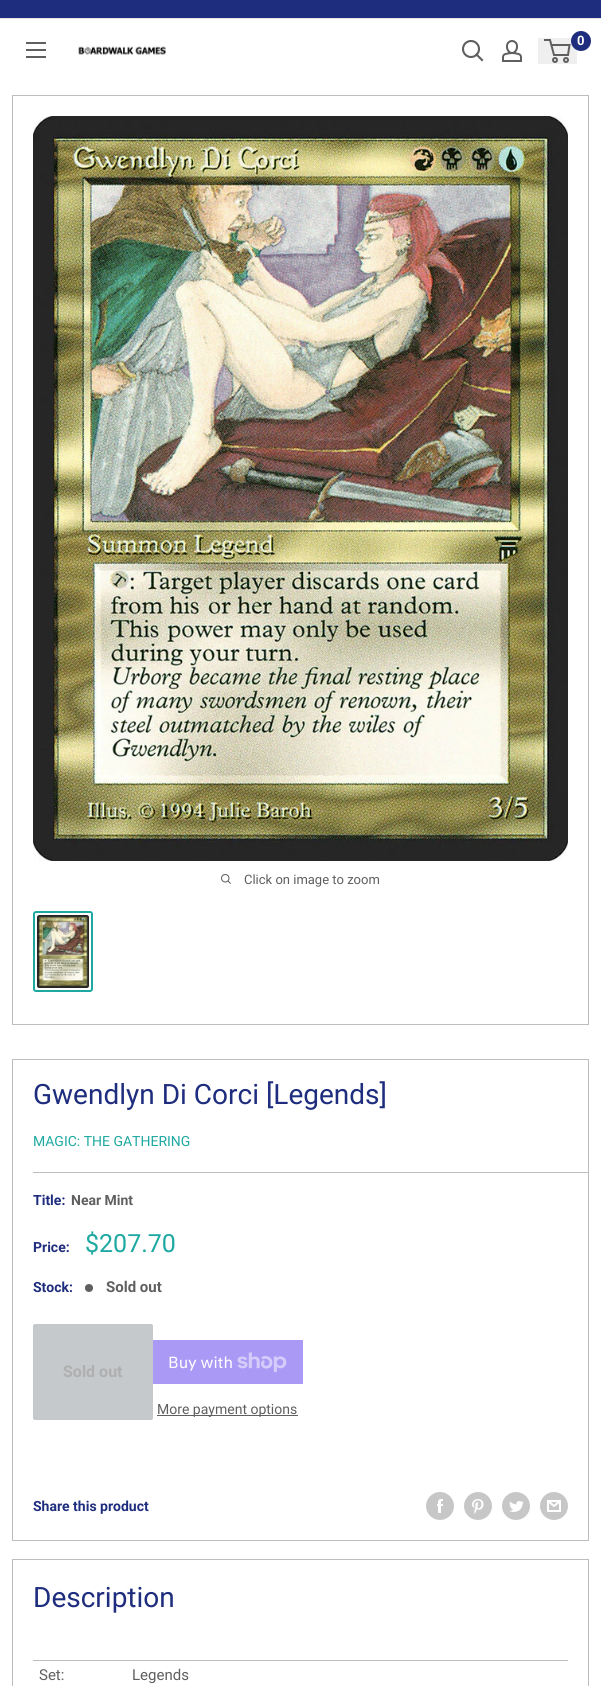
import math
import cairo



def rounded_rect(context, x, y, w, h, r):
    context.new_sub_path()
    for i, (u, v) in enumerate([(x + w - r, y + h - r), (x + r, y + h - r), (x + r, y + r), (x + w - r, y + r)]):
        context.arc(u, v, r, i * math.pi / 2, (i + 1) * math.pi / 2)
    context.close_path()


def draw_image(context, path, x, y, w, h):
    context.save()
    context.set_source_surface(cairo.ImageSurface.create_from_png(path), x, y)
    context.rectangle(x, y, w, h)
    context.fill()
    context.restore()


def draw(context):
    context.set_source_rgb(1, 1, 1)
    context.paint()
    context.set_source_rgb(30 / 255, 45 / 255, 125 / 255)
    context.rectangle(0, 0, 601, 18)
    context.fill()
    context.set_source_rgb(228 / 255, 228 / 255, 228 / 255)
    context.rectangle(0, 18, 601, 1)
    context.fill()
    context.new_path()
    context.move_to(482, 60)
    context.line_to(476.5, 54.5)
    context.set_source_rgb(95 / 255, 95 / 255, 95 / 255)
    context.set_line_width(2.1)
    context.set_line_cap(cairo.LineCap.SQUARE)
    context.stroke()
    context.arc(471, 49, 8, 0, 2 * math.pi)
    context.set_line_cap(cairo.LineCap.BUTT)
    context.stroke()
    draw_image(context, "images/1.png", 502, 40, 20, 22)
    context.set_source_rgb(239 / 255, 239 / 255, 239 / 255)
    context.rectangle(538, 38, 39, 26)
    context.fill()
    context.arc(555, 60, 2, 0, 2 * math.pi)
    context.set_source_rgb(95 / 255, 95 / 255, 95 / 255)
    context.set_line_width(2)
    context.stroke()
    context.arc(566, 60, 2, 0, 2 * math.pi)
    context.stroke()
    context.new_path()
    context.move_to(551.5, 45)
    context.line_to(569.5, 45)
    context.line_to(568, 55)
    context.line_to(554, 55)
    context.line_to(550, 40)
    context.line_to(544, 40)
    context.stroke()
    context.set_source_rgb(30 / 255, 45 / 255, 125 / 255)
    context.arc(581, 41, 10, 0, 2 * math.pi)
    context.fill()
    draw_image(context, "images/2.png", 26, 42, 20, 16)
    draw_image(context, "images/3.png", 78, 46, 88, 9)
    context.rectangle(12.5, 95.5, 576, 929)
    context.set_source_rgb(189 / 255, 189 / 255, 189 / 255)
    context.set_line_width(1)
    context.stroke()
    draw_image(context, "images/4.png", 33, 116, 535, 745)
    draw_image(context, "images/5.png", 221, 874, 10, 10)
    rounded_rect(context, 34, 912, 58, 79, 2)
    context.set_source_rgb(29 / 255, 169 / 255, 161 / 255)
    context.set_line_width(2)
    context.stroke()
    draw_image(context, "images/6.png", 37, 915, 52, 73)
    context.rectangle(12.5, 1059.5, 576, 481)
    context.set_source_rgb(189 / 255, 189 / 255, 189 / 255)
    context.set_line_width(1)
    context.stroke()
    context.rectangle(33, 1172, 555, 1)
    context.fill()
    context.set_source_rgb(95 / 255, 95 / 255, 95 / 255)
    context.arc(89, 1288, 4, 0, 2 * math.pi)
    context.fill()
    context.set_source_rgb(197 / 255, 201 / 255, 203 / 255)
    rounded_rect(context, 33.5, 1324.5, 119, 95, 1.5)
    context.fill_preserve()
    context.stroke()
    context.set_source_rgb(170 / 255, 153 / 255, 245 / 255)
    context.rectangle(153, 1340, 150, 44)
    context.fill()
    draw_image(context, "images/7.png", 237, 1352, 50, 20)
    context.set_source_rgb(95 / 255, 95 / 255, 95 / 255)
    context.rectangle(157, 1415, 141, 1)
    context.fill()
    draw_image(context, "images/8.png", 426, 1492, 28, 28)
    draw_image(context, "images/9.png", 464, 1492, 28, 28)
    draw_image(context, "images/10.png", 502, 1492, 28, 28)
    draw_image(context, "images/11.png", 540, 1492, 28, 28)
    context.rectangle(12.5, 1559.5, 576, 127)
    context.set_source_rgb(189 / 255, 189 / 255, 189 / 255)
    context.stroke()
    context.rectangle(33, 1660, 535, 1)
    context.fill()
    context.select_font_face("Roboto", cairo.FontSlant.NORMAL, cairo.FontWeight.BOLD)
    context.set_font_size(13)
    context.set_source_rgb(1, 1, 1)
    context.move_to(577, 45)
    context.show_text("0")
    context.select_font_face("Roboto")
    context.set_source_rgb(95 / 255, 95 / 255, 95 / 255)
    context.move_to(244, 884)
    context.show_text("Click on image to zoom")
    context.set_font_size(28)
    context.set_source_rgb(30 / 255, 45 / 255, 125 / 255)
    context.move_to(33, 1104)
    context.show_text("Gwendlyn Di Corci [Legends]")
    context.set_font_size(14)
    context.set_source_rgb(29 / 255, 169 / 255, 161 / 255)
    context.move_to(33, 1146)
    context.show_text("MAGIC: THE GATHERING")
    context.select_font_face("Roboto", cairo.FontSlant.NORMAL, cairo.FontWeight.BOLD)
    context.set_source_rgb(30 / 255, 45 / 255, 125 / 255)
    context.move_to(33, 1205)
    context.show_text("Title:")
    context.set_source_rgb(95 / 255, 95 / 255, 95 / 255)
    context.move_to(71, 1205)
    context.show_text("Near Mint")
    context.set_source_rgb(30 / 255, 45 / 255, 125 / 255)
    context.move_to(33, 1252)
    context.show_text("Price:")
    context.select_font_face("Roboto")
    context.set_font_size(25)
    context.set_source_rgb(29 / 255, 169 / 255, 161 / 255)
    context.move_to(85, 1252)
    context.show_text("$207.70")
    context.select_font_face("Roboto", cairo.FontSlant.NORMAL, cairo.FontWeight.BOLD)
    context.set_font_size(14)
    context.set_source_rgb(30 / 255, 45 / 255, 125 / 255)
    context.move_to(33, 1292)
    context.show_text("Stock:")
    context.set_font_size(15)
    context.set_source_rgb(95 / 255, 95 / 255, 95 / 255)
    context.move_to(106, 1292)
    context.show_text("Sold out")
    context.set_font_size(16)
    context.set_source_rgb(175 / 255, 175 / 255, 175 / 255)
    context.move_to(63, 1377)
    context.show_text("Sold out")
    context.select_font_face("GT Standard")
    context.set_source_rgb(1, 1, 1)
    context.move_to(168, 1368)
    context.show_text("Buy with")
    context.select_font_face("Roboto")
    context.set_font_size(14)
    context.set_source_rgb(95 / 255, 95 / 255, 95 / 255)
    context.move_to(157, 1414)
    context.show_text("More payment options")
    context.select_font_face("Roboto", cairo.FontSlant.NORMAL, cairo.FontWeight.BOLD)
    context.set_source_rgb(30 / 255, 45 / 255, 125 / 255)
    context.move_to(33, 1511)
    context.show_text("Share this product")
    context.select_font_face("Roboto")
    context.set_font_size(28)
    context.move_to(33, 1607)
    context.show_text("Description")
    context.set_font_size(15)
    context.set_source_rgb(95 / 255, 95 / 255, 95 / 255)
    context.move_to(39, 1680)
    context.show_text("Set:")
    context.move_to(132, 1680)
    context.show_text("Legends")


surface = cairo.ImageSurface(cairo.Format.RGB24, 601, 1686)
context = cairo.Context(surface)
options = cairo.FontOptions()
options.set_hint_metrics(cairo.HintMetrics.OFF)
options.set_hint_style(cairo.HintStyle.NONE)
context.set_font_options(options)
context.set_miter_limit(4)
draw(context)
surface.write_to_png("out.png")
